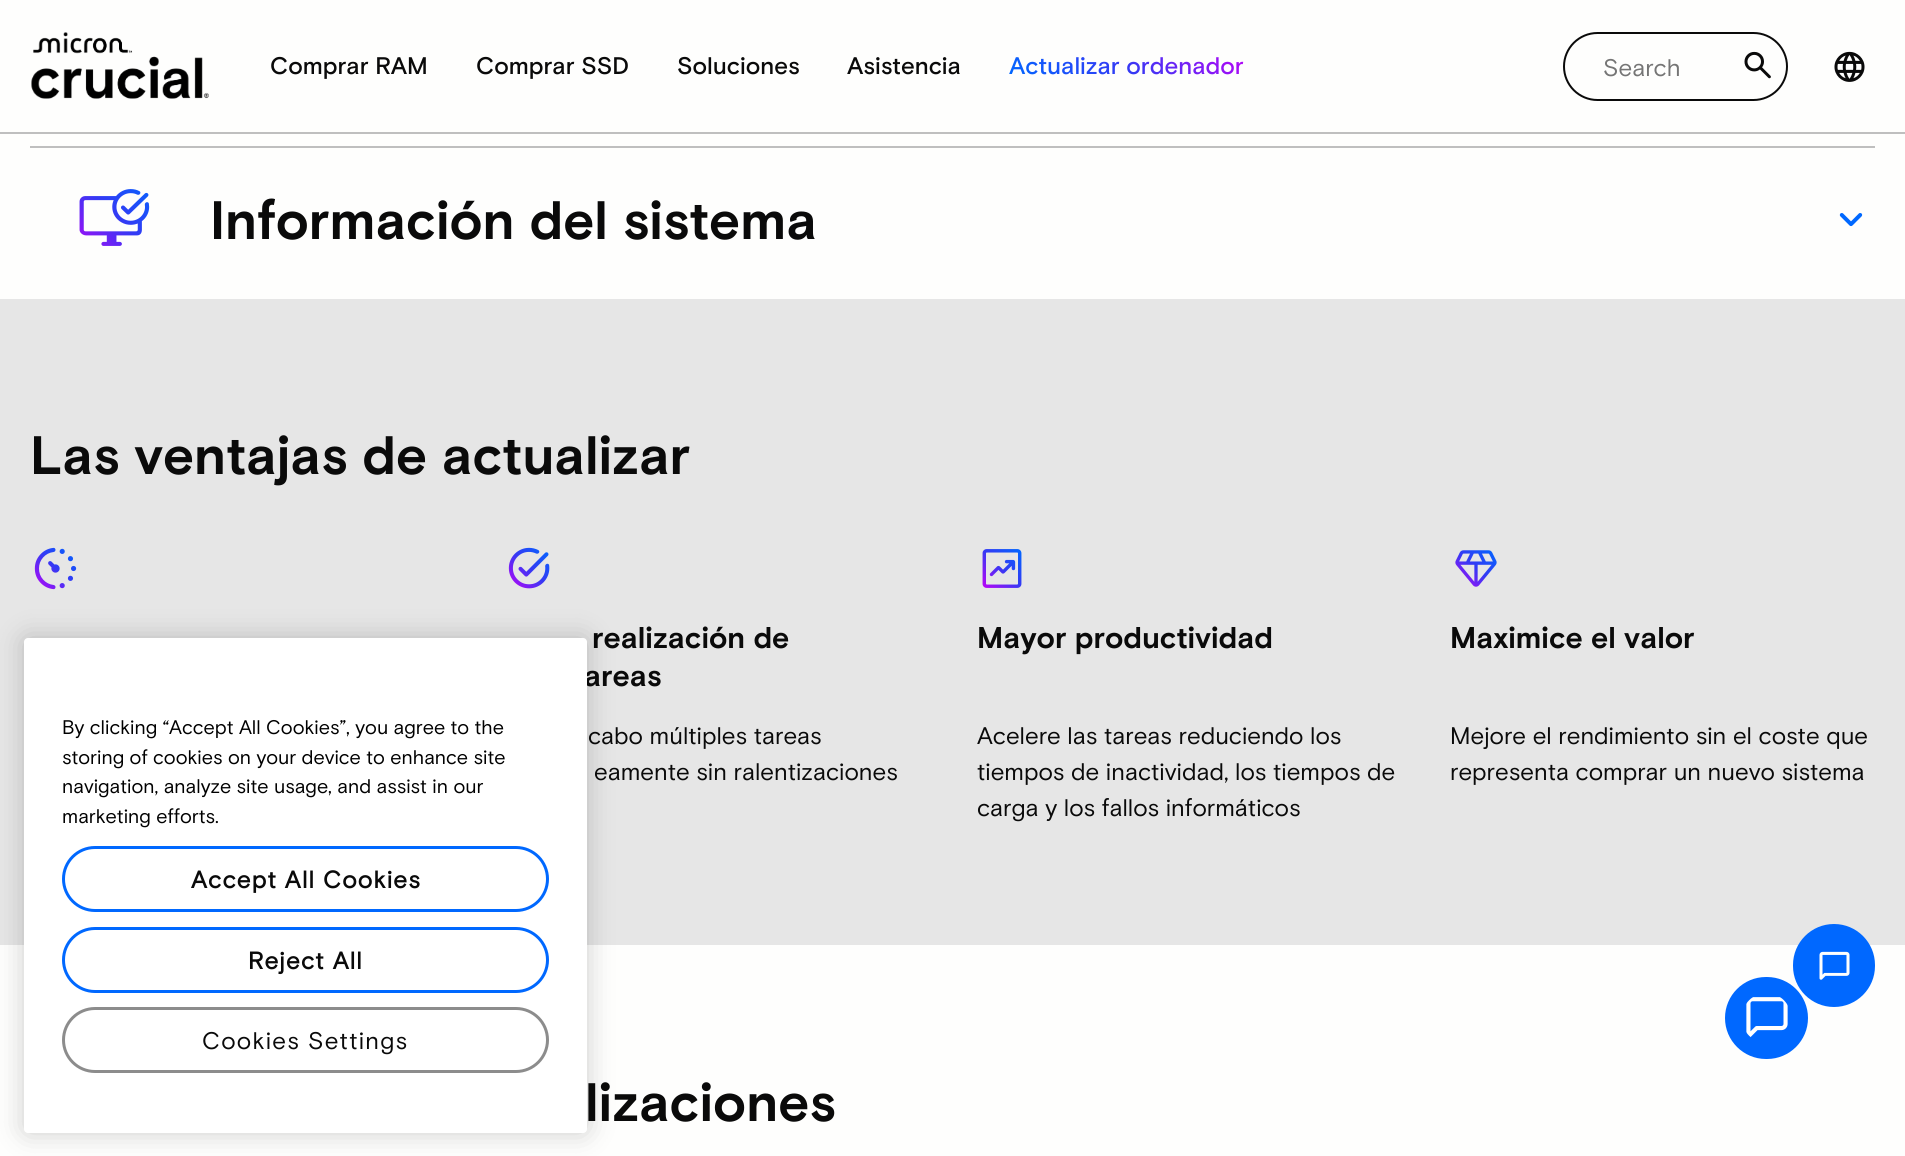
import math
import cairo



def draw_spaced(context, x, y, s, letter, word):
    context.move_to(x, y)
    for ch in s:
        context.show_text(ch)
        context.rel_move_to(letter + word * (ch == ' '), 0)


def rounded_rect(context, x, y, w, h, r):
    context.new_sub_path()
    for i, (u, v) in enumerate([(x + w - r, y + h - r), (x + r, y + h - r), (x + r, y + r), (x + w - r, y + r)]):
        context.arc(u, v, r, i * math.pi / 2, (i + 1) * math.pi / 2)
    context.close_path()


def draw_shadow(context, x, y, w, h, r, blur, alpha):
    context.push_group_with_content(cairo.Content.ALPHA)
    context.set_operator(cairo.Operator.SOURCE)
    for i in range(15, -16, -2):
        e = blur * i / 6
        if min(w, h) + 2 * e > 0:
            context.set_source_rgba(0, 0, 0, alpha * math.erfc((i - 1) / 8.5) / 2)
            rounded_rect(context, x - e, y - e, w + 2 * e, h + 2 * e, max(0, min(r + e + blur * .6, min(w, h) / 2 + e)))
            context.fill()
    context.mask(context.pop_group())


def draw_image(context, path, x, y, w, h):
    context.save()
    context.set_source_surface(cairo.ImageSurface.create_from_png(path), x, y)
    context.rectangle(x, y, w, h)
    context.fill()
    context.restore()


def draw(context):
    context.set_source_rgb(254 / 255, 254 / 255, 253 / 255)
    context.paint()
    context.set_source_rgb(191 / 255, 191 / 255, 191 / 255)
    context.rectangle(0, 132, 1905, 2)
    context.fill()
    draw_image(context, "images/1.png", 31, 32, 178, 67)
    rounded_rect(context, 1564, 33, 223, 67, 33.5)
    context.set_source_rgb(10 / 255, 10 / 255, 10 / 255)
    context.stroke()
    draw_image(context, "images/2.png", 1744, 51, 27, 28)
    draw_image(context, "images/3.png", 1834, 51, 31, 31)
    context.set_source_rgb(191 / 255, 191 / 255, 191 / 255)
    context.rectangle(30, 146, 1845, 2)
    context.fill()
    draw_image(context, "images/4.png", 79, 189, 71, 57)
    draw_image(context, "images/5.png", 1839, 213, 24, 14)
    context.set_source_rgb(230 / 255, 230 / 255, 230 / 255)
    context.rectangle(0, 299, 1905, 646)
    context.fill()
    draw_image(context, "images/6.png", 34, 547, 43, 43)
    draw_image(context, "images/7.png", 508, 547, 42, 42)
    draw_image(context, "images/8.png", 982, 549, 40, 39)
    draw_image(context, "images/9.png", 1455, 550, 42, 37)
    draw_image(context, "images/11.png", 1803, 937, 2, 2)
    context.set_source_rgb(0, 104 / 255, 1)
    rounded_rect(context, 1793, 924, 82, 83, 41)
    context.fill()
    draw_image(context, "images/10.png", 1819, 951, 31, 29)
    rounded_rect(context, 1725, 977, 83, 82, 41)
    context.fill()
    draw_image(context, "images/12.png", 1746, 997, 42, 41)
    context.set_source_rgb(0, 0, 0)
    draw_shadow(context, 24, 638, 563, 495, 4, 13.5, 0.2)
    context.select_font_face("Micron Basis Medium")
    context.set_font_size(24)
    context.set_source_rgb(10 / 255, 10 / 255, 10 / 255)
    context.move_to(270, 74)
    context.show_text("Comprar RAM")
    context.move_to(476, 74)
    context.show_text("Comprar SSD")
    context.move_to(677, 74)
    context.show_text("Soluciones")
    context.move_to(847, 74)
    context.show_text("Asistencia")
    gradient = cairo.LinearGradient(1192, -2, 1061, 130)
    gradient.add_color_stop_rgba(0, 189 / 255, 3 / 255, 247 / 255, 1)
    gradient.add_color_stop_rgba(0.51, 53 / 255, 57 / 255, 244 / 255, 1)
    gradient.add_color_stop_rgba(1, 0, 104 / 255, 1, 1)
    context.set_source(gradient)
    context.move_to(1009, 74)
    context.show_text("Actualizar ordenador")
    context.select_font_face("Micron Basis")
    context.set_source_rgb(117 / 255, 117 / 255, 117 / 255)
    context.move_to(1603, 76)
    context.show_text("Search")
    context.select_font_face("Micron Basis", cairo.FontSlant.NORMAL, cairo.FontWeight.BOLD)
    context.set_font_size(54)
    context.set_source_rgb(10 / 255, 10 / 255, 10 / 255)
    context.move_to(210, 239)
    context.show_text("Información del sistema")
    context.move_to(30, 474)
    context.show_text("Las ventajas de actualizar")
    context.set_font_size(30)
    context.move_to(592, 648)
    context.show_text("realización de")
    context.move_to(584, 686)
    context.show_text("areas")
    context.select_font_face("Micron Basis")
    context.set_font_size(24)
    context.move_to(588, 744)
    context.show_text("cabo múltiples tareas")
    context.move_to(594, 780)
    context.show_text("eamente sin ralentizaciones")
    context.select_font_face("Micron Basis", cairo.FontSlant.NORMAL, cairo.FontWeight.BOLD)
    context.set_font_size(30)
    context.move_to(977, 648)
    context.show_text("Mayor productividad")
    context.select_font_face("Micron Basis")
    context.set_font_size(24)
    context.move_to(977, 744)
    context.show_text("Acelere las tareas reduciendo los")
    context.move_to(977, 780)
    context.show_text("tiempos de inactividad, los tiempos de")
    context.move_to(977, 816)
    context.show_text("carga y los fallos informáticos")
    context.select_font_face("Micron Basis", cairo.FontSlant.NORMAL, cairo.FontWeight.BOLD)
    context.set_font_size(30)
    context.move_to(1450, 648)
    context.show_text("Maximice el valor")
    context.select_font_face("Micron Basis")
    context.set_font_size(24)
    context.move_to(1450, 744)
    context.show_text("Mejore el rendimiento sin el coste que")
    context.move_to(1450, 780)
    context.show_text("representa comprar un nuevo sistema")
    context.select_font_face("Micron Basis", cairo.FontSlant.NORMAL, cairo.FontWeight.BOLD)
    context.set_font_size(54)
    context.move_to(585, 1121)
    context.show_text("lizaciones")
    context.set_source_rgb(1, 1, 1)
    rounded_rect(context, 24, 638, 563, 495, 4)
    context.fill()
    context.select_font_face("Micron Basis")
    context.set_font_size(19.7)
    context.set_source_rgb(0, 0, 0)
    context.move_to(62, 734)
    context.show_text("By clicking “Accept All Cookies”, you agree to the")
    context.move_to(62, 764)
    context.show_text("storing of cookies on your device to enhance site")
    context.move_to(62, 793)
    context.show_text("navigation, analyze site usage, and assist in our")
    context.move_to(62, 823)
    context.show_text("marketing efforts.")
    rounded_rect(context, 63.5, 847.5, 484, 63, 31.5)
    context.set_source_rgb(0, 104 / 255, 1)
    context.set_line_width(3)
    context.stroke()
    context.select_font_face("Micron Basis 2", cairo.FontSlant.NORMAL, cairo.FontWeight.BOLD)
    context.set_font_size(24)
    context.set_source_rgb(10 / 255, 10 / 255, 10 / 255)
    draw_spaced(context, 191, 888, "Accept All Cookies", 1.25, 0)
    rounded_rect(context, 63.5, 928.5, 484, 63, 31.5)
    context.set_source_rgb(0, 104 / 255, 1)
    context.stroke()
    context.set_source_rgb(10 / 255, 10 / 255, 10 / 255)
    draw_spaced(context, 248, 969, "Reject All", 1.25, 0)
    rounded_rect(context, 63.5, 1008.5, 484, 63, 31.5)
    context.set_source_rgb(140 / 255, 140 / 255, 140 / 255)
    context.stroke()
    context.select_font_face("Micron Basis")
    context.set_source_rgb(10 / 255, 10 / 255, 10 / 255)
    draw_spaced(context, 202, 1049, "Cookies Settings", 1.25, 0)


surface = cairo.ImageSurface(cairo.Format.RGB24, 1905, 1156)
context = cairo.Context(surface)
options = cairo.FontOptions()
options.set_hint_metrics(cairo.HintMetrics.OFF)
options.set_hint_style(cairo.HintStyle.NONE)
context.set_font_options(options)
context.set_miter_limit(4)
draw(context)
surface.write_to_png("out.png")
